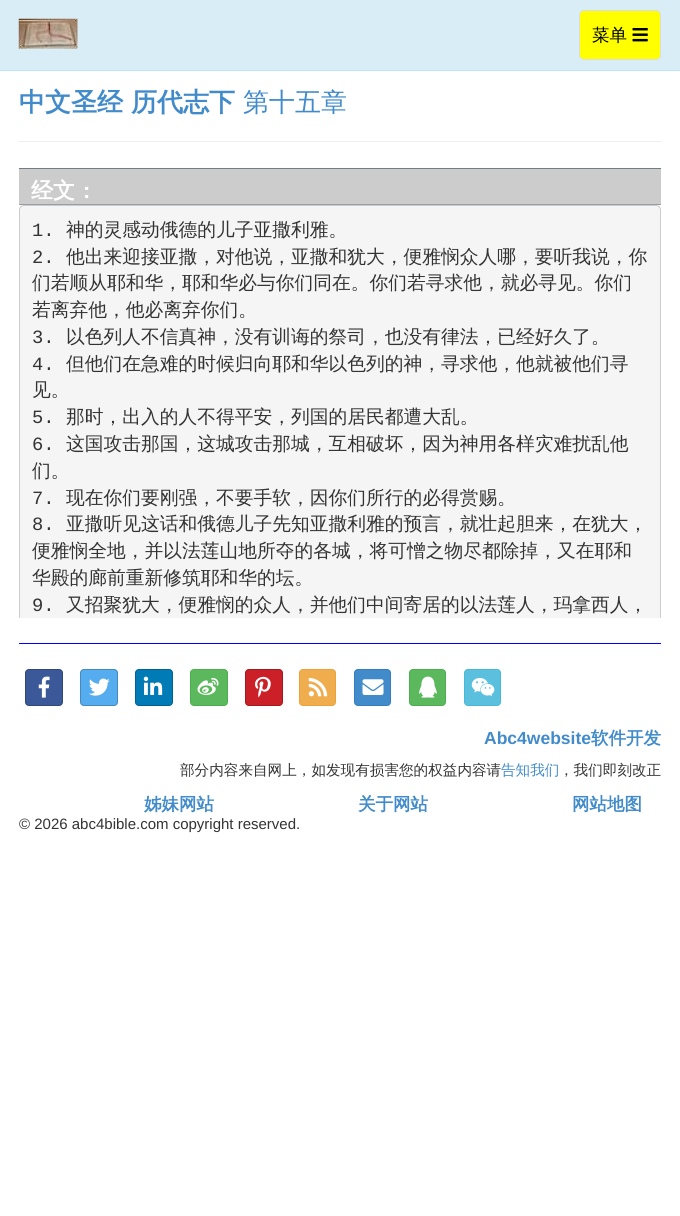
import math
import cairo



def rounded_rect(context, x, y, w, h, r):
    context.new_sub_path()
    for i, (u, v) in enumerate([(x + w - r, y + h - r), (x + r, y + h - r), (x + r, y + r), (x + w - r, y + r)]):
        context.arc(u, v, r, i * math.pi / 2, (i + 1) * math.pi / 2)
    context.close_path()


def draw_image(context, path, x, y, w, h):
    context.save()
    context.set_source_surface(cairo.ImageSurface.create_from_png(path), x, y)
    context.rectangle(x, y, w, h)
    context.fill()
    context.restore()


def draw(context):
    context.set_source_rgb(1, 1, 1)
    context.paint()
    context.set_source_rgb(217 / 255, 237 / 255, 247 / 255)
    context.rectangle(0, 0, 680, 70)
    context.fill()
    context.set_source_rgb(188 / 255, 232 / 255, 241 / 255)
    context.rectangle(0, 70, 680, 1)
    context.fill()
    draw_image(context, "images/1.png", 18, 18, 60, 31)
    context.set_source_rgb(1, 1, 0)
    rounded_rect(context, 579.5, 10.5, 81, 49, 4.5)
    context.fill_preserve()
    context.set_source_rgb(221 / 255, 221 / 255, 221 / 255)
    context.set_line_width(1)
    context.stroke()
    draw_image(context, "images/2.png", 632, 28, 16, 14)
    context.set_source_rgb(238 / 255, 238 / 255, 238 / 255)
    context.rectangle(19, 141, 642, 1)
    context.fill()
    context.set_source_rgb(204 / 255, 204 / 255, 204 / 255)
    context.rectangle(19, 169, 642, 35)
    context.fill()
    context.set_source_rgb(113 / 255, 125 / 255, 133 / 255)
    context.rectangle(19, 168, 642, 1)
    context.fill()
    context.set_source_rgb(152 / 255, 158 / 255, 164 / 255)
    context.rectangle(19, 204, 642, 1)
    context.fill()
    context.set_source_rgb(245 / 255, 245 / 255, 245 / 255)
    context.new_path()
    context.move_to(24, 205)
    context.line_to(656, 205)
    context.curve_to(659, 205, 661, 207, 661, 210)
    context.line_to(661, 618)
    context.line_to(19, 618)
    context.line_to(19, 210)
    context.curve_to(19, 207, 21, 205, 24, 205)
    context.close_path()
    context.fill()
    context.set_source_rgb(0, 0, 1)
    context.rectangle(19, 643, 642, 1)
    context.fill()
    context.select_font_face("WenQuanYi Zen Hei Medium")
    context.set_font_size(17.5)
    context.set_source_rgb(0, 0, 0)
    context.move_to(592, 41)
    context.show_text("菜单")
    context.select_font_face("WenQuanYi Zen Hei", cairo.FontSlant.NORMAL, cairo.FontWeight.BOLD)
    context.set_font_size(26)
    context.set_source_rgb(66 / 255, 139 / 255, 202 / 255)
    context.move_to(19, 111)
    context.show_text("中文圣经")
    context.move_to(131, 111)
    context.show_text("历代志下")
    context.select_font_face("WenQuanYi Zen Hei Medium")
    context.move_to(243, 111)
    context.show_text("第十五章")
    context.select_font_face("WenQuanYi Zen Hei", cairo.FontSlant.NORMAL, cairo.FontWeight.BOLD)
    context.set_font_size(22)
    context.set_source_rgb(1, 1, 1)
    context.move_to(31, 198)
    context.show_text("经文")
    context.select_font_face("Liberation Sans", cairo.FontSlant.NORMAL, cairo.FontWeight.BOLD)
    context.move_to(83, 198)
    context.show_text(":")
    context.select_font_face("Liberation Sans")
    context.set_font_size(15)
    context.set_source_rgb(51 / 255, 51 / 255, 51 / 255)
    context.move_to(19, 829)
    context.show_text("© 2026 abc4bible.com copyright reserved.")
    context.save()
    context.rectangle(19, 168, 642, 450)
    context.clip()
    rounded_rect(context, 19.5, 205.5, 641, 829, 4.5)
    context.set_source_rgb(204 / 255, 204 / 255, 204 / 255)
    context.stroke()
    context.restore()
    context.select_font_face("WenQuanYi Zen Hei", cairo.FontSlant.NORMAL, cairo.FontWeight.BOLD)
    context.set_font_size(17.5)
    context.set_source_rgb(66 / 255, 139 / 255, 202 / 255)
    context.move_to(572, 810)
    context.show_text("网站地图")
    context.move_to(358, 810)
    context.show_text("关于网站")
    context.move_to(144, 810)
    context.show_text("姊妹网站")
    context.select_font_face("WenQuanYi Zen Hei Medium")
    context.set_font_size(14.6)
    context.set_source_rgb(51 / 255, 51 / 255, 51 / 255)
    context.move_to(559, 775)
    context.show_text("，我们即刻改正")
    context.set_source_rgb(66 / 255, 139 / 255, 202 / 255)
    context.move_to(501, 775)
    context.show_text("告知我们")
    context.set_source_rgb(51 / 255, 51 / 255, 51 / 255)
    context.move_to(180, 775)
    context.show_text("部分内容来自网上，如发现有损害您的权益内容请")
    context.select_font_face("WenQuanYi Zen Hei", cairo.FontSlant.NORMAL, cairo.FontWeight.BOLD)
    context.set_font_size(17.5)
    context.set_source_rgb(66 / 255, 139 / 255, 202 / 255)
    context.move_to(591, 744)
    context.show_text("软件开发")
    context.select_font_face("Liberation Sans", cairo.FontSlant.NORMAL, cairo.FontWeight.BOLD)
    context.move_to(484, 744)
    context.show_text("Abc4website")
    context.set_source_rgb(91 / 255, 192 / 255, 222 / 255)
    rounded_rect(context, 464.5, 669.5, 36, 36, 3.5)
    context.fill_preserve()
    context.set_source_rgb(70 / 255, 184 / 255, 218 / 255)
    context.stroke()
    draw_image(context, "images/11.png", 471, 677, 24, 20)
    context.set_source_rgb(92 / 255, 184 / 255, 92 / 255)
    rounded_rect(context, 409.5, 669.5, 36, 36, 3.5)
    context.fill_preserve()
    context.set_source_rgb(76 / 255, 174 / 255, 76 / 255)
    context.stroke()
    draw_image(context, "images/10.png", 419, 676, 18, 22)
    context.set_source_rgb(66 / 255, 139 / 255, 202 / 255)
    rounded_rect(context, 354.5, 669.5, 36, 36, 3.5)
    context.fill_preserve()
    context.set_source_rgb(53 / 255, 126 / 255, 189 / 255)
    context.stroke()
    draw_image(context, "images/9.png", 362, 679, 22, 16)
    context.set_source_rgb(240 / 255, 173 / 255, 78 / 255)
    rounded_rect(context, 299.5, 669.5, 36, 36, 3.5)
    context.fill_preserve()
    context.set_source_rgb(238 / 255, 162 / 255, 54 / 255)
    context.stroke()
    draw_image(context, "images/8.png", 308, 677, 20, 20)
    context.set_source_rgb(203 / 255, 32 / 255, 39 / 255)
    rounded_rect(context, 245, 669, 38, 37, 4)
    context.fill()
    rounded_rect(context, 245.5, 669.5, 37, 36, 3.5)
    context.set_source_rgba(0, 0, 0, 0.2)
    context.stroke()
    draw_image(context, "images/7.png", 255, 676, 16, 22)
    context.set_source_rgb(92 / 255, 184 / 255, 92 / 255)
    rounded_rect(context, 190.5, 669.5, 37, 36, 3.5)
    context.fill_preserve()
    context.set_source_rgb(76 / 255, 174 / 255, 76 / 255)
    context.stroke()
    draw_image(context, "images/6.png", 197, 677, 22, 18)
    context.set_source_rgb(0, 123 / 255, 182 / 255)
    rounded_rect(context, 135, 669, 38, 37, 4)
    context.fill()
    rounded_rect(context, 135.5, 669.5, 37, 36, 3.5)
    context.set_source_rgba(0, 0, 0, 0.2)
    context.stroke()
    draw_image(context, "images/5.png", 143, 676, 20, 19)
    context.set_source_rgb(85 / 255, 172 / 255, 238 / 255)
    rounded_rect(context, 80, 669, 38, 37, 4)
    context.fill()
    rounded_rect(context, 80.5, 669.5, 37, 36, 3.5)
    context.set_source_rgba(0, 0, 0, 0.2)
    context.stroke()
    draw_image(context, "images/4.png", 89, 678, 21, 18)
    context.set_source_rgb(59 / 255, 89 / 255, 152 / 255)
    rounded_rect(context, 25, 669, 38, 37, 4)
    context.fill()
    rounded_rect(context, 25.5, 669.5, 37, 36, 3.5)
    context.set_source_rgba(0, 0, 0, 0.2)
    context.stroke()
    draw_image(context, "images/3.png", 38, 676, 12, 22)
    context.select_font_face("WenQuanYi Zen Hei Medium")
    context.set_font_size(18.75)
    context.set_source_rgb(51 / 255, 51 / 255, 51 / 255)
    context.move_to(66, 611)
    context.show_text("又招聚犹大，便雅悯的众人，并他们中间寄居的以法莲人，玛拿西人，")
    context.select_font_face("Liberation Mono")
    context.move_to(32, 611)
    context.show_text("9.")
    context.select_font_face("WenQuanYi Zen Hei Medium")
    context.move_to(32, 584)
    context.show_text("华殿的廊前重新修筑耶和华的坛。")
    context.move_to(32, 557)
    context.show_text("便雅悯全地，并以法莲山地所夺的各城，将可憎之物尽都除掉，又在耶和")
    context.move_to(66, 530)
    context.show_text("亚撒听见这话和俄德儿子先知亚撒利雅的预言，就壮起胆来，在犹大，")
    context.select_font_face("Liberation Mono")
    context.move_to(32, 530)
    context.show_text("8.")
    context.select_font_face("WenQuanYi Zen Hei Medium")
    context.move_to(66, 504)
    context.show_text("现在你们要刚强，不要手软，因你们所行的必得赏赐。")
    context.select_font_face("Liberation Mono")
    context.move_to(32, 504)
    context.show_text("7.")
    context.select_font_face("WenQuanYi Zen Hei Medium")
    context.move_to(32, 477)
    context.show_text("们。")
    context.move_to(66, 450)
    context.show_text("这国攻击那国，这城攻击那城，互相破坏，因为神用各样灾难扰乱他")
    context.select_font_face("Liberation Mono")
    context.move_to(32, 450)
    context.show_text("6.")
    context.select_font_face("WenQuanYi Zen Hei Medium")
    context.move_to(66, 423)
    context.show_text("那时，出入的人不得平安，列国的居民都遭大乱。")
    context.select_font_face("Liberation Mono")
    context.move_to(32, 423)
    context.show_text("5.")
    context.select_font_face("WenQuanYi Zen Hei Medium")
    context.move_to(32, 396)
    context.show_text("见。")
    context.move_to(66, 370)
    context.show_text("但他们在急难的时候归向耶和华以色列的神，寻求他，他就被他们寻")
    context.select_font_face("Liberation Mono")
    context.move_to(32, 370)
    context.show_text("4.")
    context.select_font_face("WenQuanYi Zen Hei Medium")
    context.move_to(66, 343)
    context.show_text("以色列人不信真神，没有训诲的祭司，也没有律法，已经好久了。")
    context.select_font_face("Liberation Mono")
    context.move_to(32, 343)
    context.show_text("3.")
    context.select_font_face("WenQuanYi Zen Hei Medium")
    context.move_to(32, 316)
    context.show_text("若离弃他，他必离弃你们。")
    context.move_to(32, 289)
    context.show_text("们若顺从耶和华，耶和华必与你们同在。你们若寻求他，就必寻见。你们")
    context.move_to(66, 263)
    context.show_text("他出来迎接亚撒，对他说，亚撒和犹大，便雅悯众人哪，要听我说，你")
    context.select_font_face("Liberation Mono")
    context.move_to(32, 263)
    context.show_text("2.")
    context.select_font_face("WenQuanYi Zen Hei Medium")
    context.move_to(66, 236)
    context.show_text("神的灵感动俄德的儿子亚撒利雅。")
    context.select_font_face("Liberation Mono")
    context.move_to(32, 236)
    context.show_text("1.")


surface = cairo.ImageSurface(cairo.Format.RGB24, 680, 1216)
context = cairo.Context(surface)
options = cairo.FontOptions()
options.set_hint_metrics(cairo.HintMetrics.OFF)
options.set_hint_style(cairo.HintStyle.NONE)
context.set_font_options(options)
context.set_miter_limit(4)
draw(context)
surface.write_to_png("out.png")
